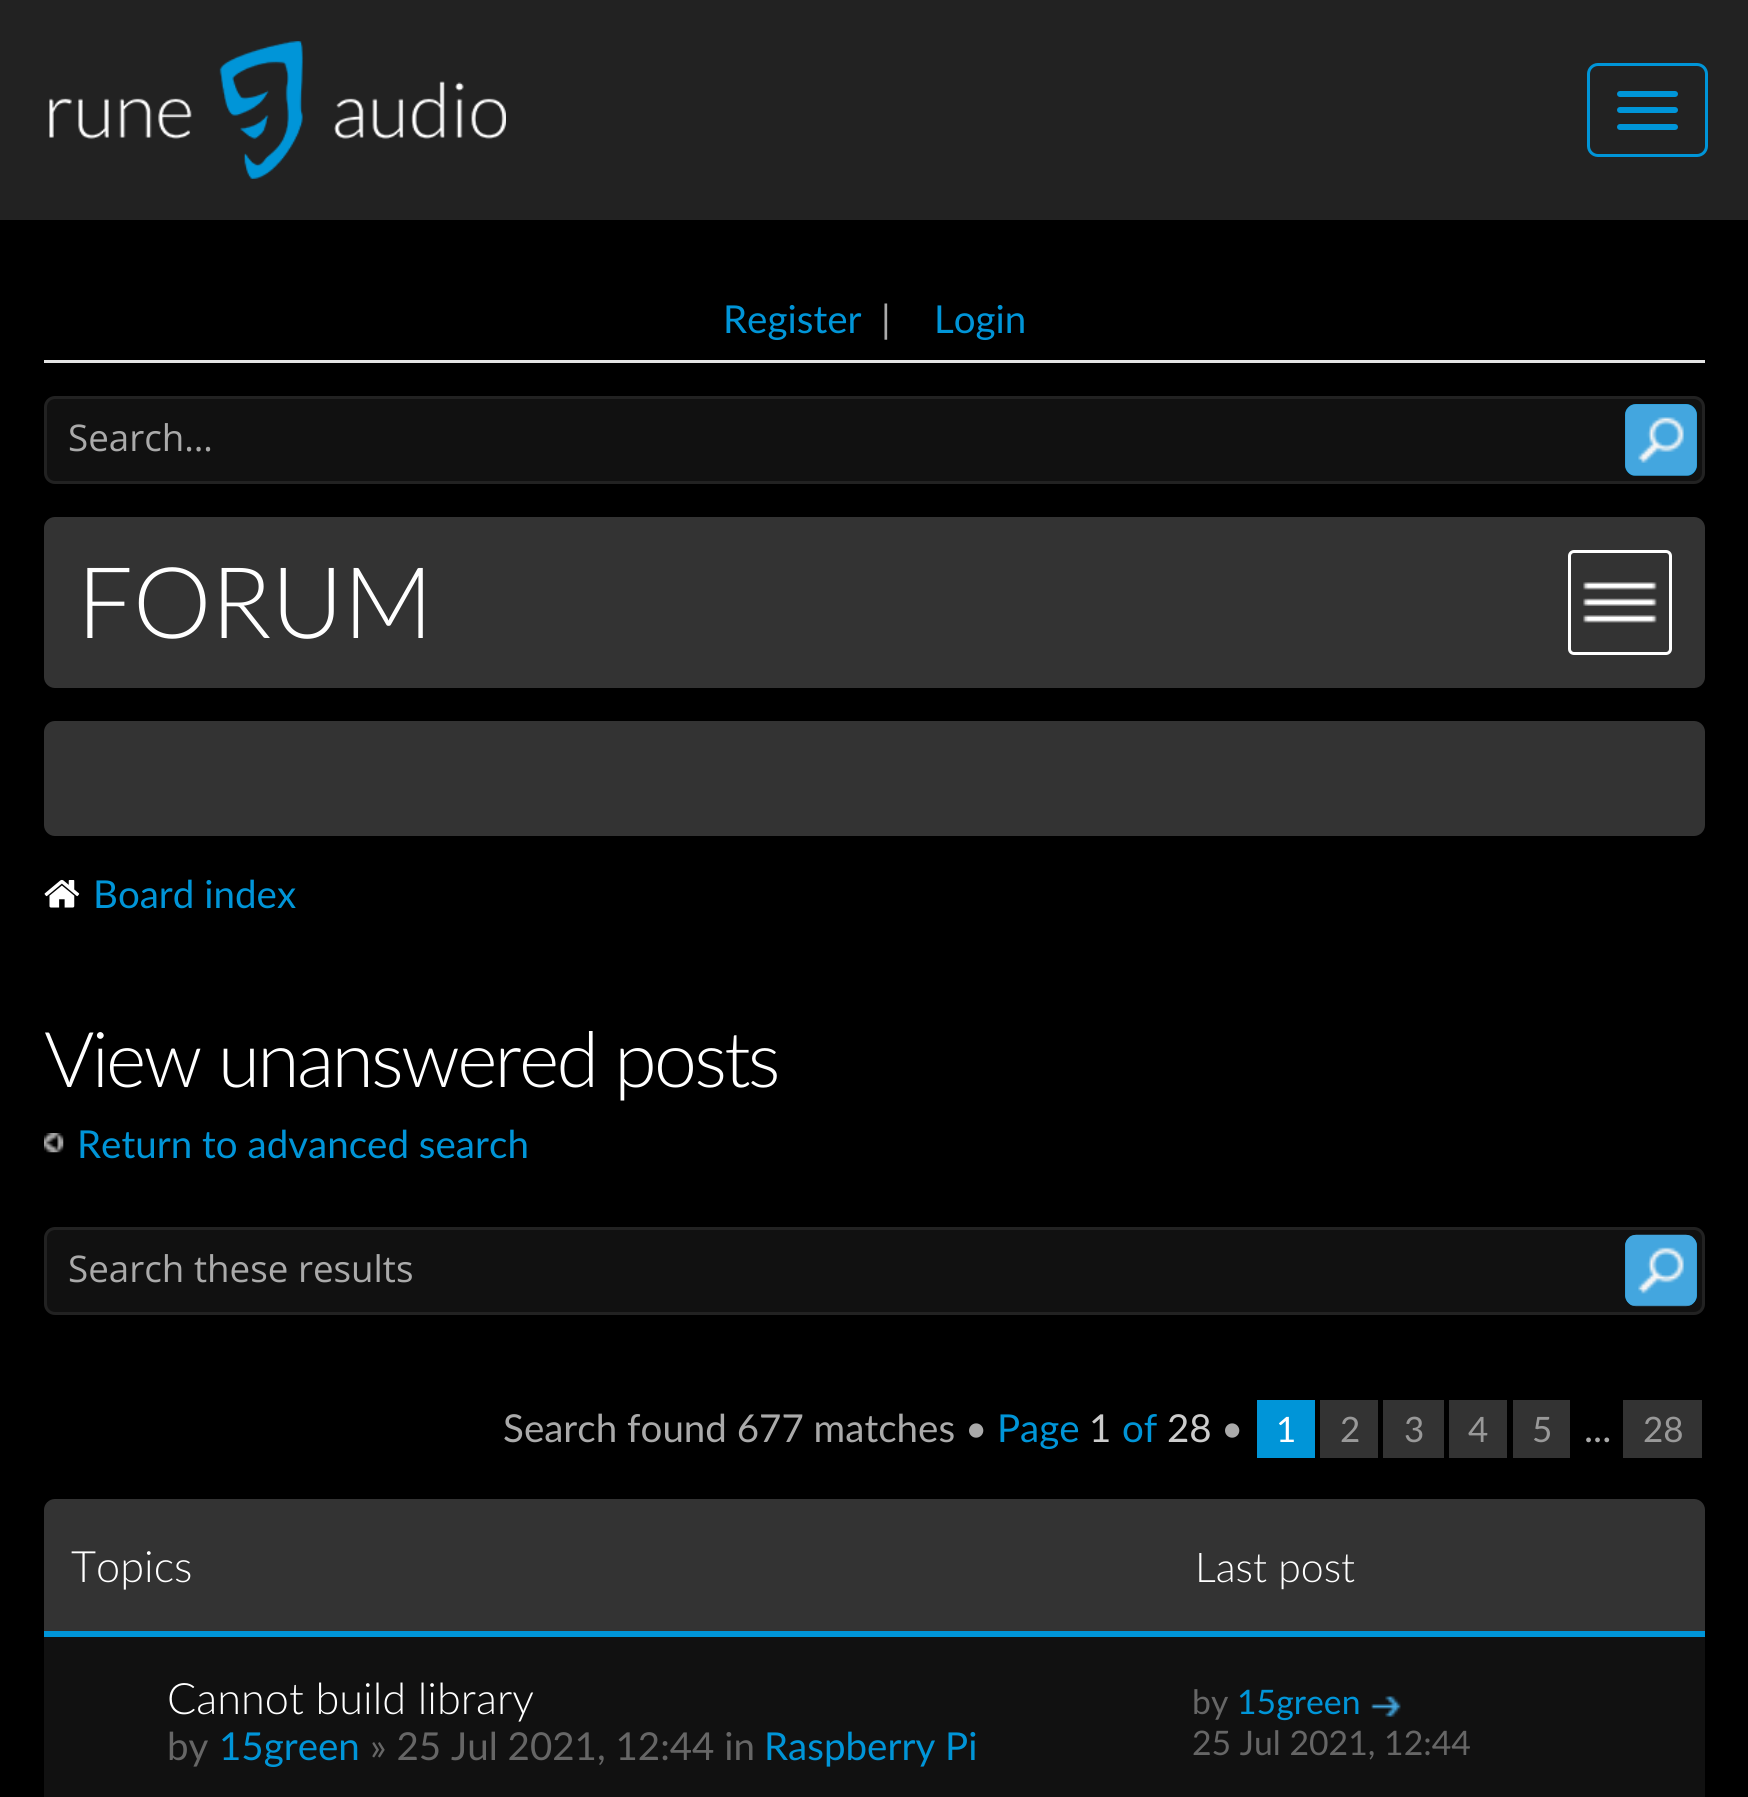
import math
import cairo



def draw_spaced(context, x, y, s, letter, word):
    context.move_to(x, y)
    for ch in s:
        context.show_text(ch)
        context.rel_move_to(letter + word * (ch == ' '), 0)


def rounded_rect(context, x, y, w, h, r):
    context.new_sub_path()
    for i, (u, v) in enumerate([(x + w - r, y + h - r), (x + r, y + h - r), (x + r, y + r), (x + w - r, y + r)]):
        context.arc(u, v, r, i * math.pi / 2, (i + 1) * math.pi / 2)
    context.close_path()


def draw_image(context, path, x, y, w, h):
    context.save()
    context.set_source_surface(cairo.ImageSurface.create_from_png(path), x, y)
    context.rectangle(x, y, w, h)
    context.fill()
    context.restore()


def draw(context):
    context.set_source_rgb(0, 0, 0)
    context.paint()
    context.set_source_rgb(34 / 255, 34 / 255, 34 / 255)
    context.rectangle(0, 0, 1748, 220)
    context.fill()
    draw_image(context, "images/1.png", 49, 41, 457, 138)
    rounded_rect(context, 1588.5, 64.5, 118, 91, 9.5)
    context.set_source_rgb(0, 149 / 255, 216 / 255)
    context.set_line_width(3)
    context.stroke()
    rounded_rect(context, 1617, 91, 61, 6, 3)
    context.fill()
    rounded_rect(context, 1617, 107, 61, 6, 3)
    context.fill()
    rounded_rect(context, 1617, 124, 61, 6, 3)
    context.fill()
    context.set_source_rgb(228 / 255, 228 / 255, 228 / 255)
    context.rectangle(44, 360, 1661, 3)
    context.fill()
    context.set_source_rgb(17 / 255, 17 / 255, 17 / 255)
    rounded_rect(context, 45.5, 397.5, 1658, 85, 9.5)
    context.fill_preserve()
    context.set_source_rgb(34 / 255, 34 / 255, 34 / 255)
    context.stroke()
    context.set_source_rgb(0, 149 / 255, 216 / 255)
    rounded_rect(context, 1625, 404, 72, 72, 11)
    context.fill()
    draw_image(context, "images/2.png", 1625, 404, 72, 72)
    context.set_source_rgb(51 / 255, 51 / 255, 51 / 255)
    rounded_rect(context, 44, 517, 1661, 171, 11)
    context.fill()
    draw_image(context, "images/3.png", 1583, 582, 74, 41)
    rounded_rect(context, 1569.5, 551.5, 101, 102, 4.5)
    context.set_source_rgb(1, 1, 1)
    context.stroke()
    context.set_source_rgb(51 / 255, 51 / 255, 51 / 255)
    rounded_rect(context, 44, 721, 1661, 115, 11)
    context.fill()
    draw_image(context, "images/4.png", 44, 879, 36, 29)
    draw_image(context, "images/5.png", 44, 1133, 20, 20)
    context.set_source_rgb(17 / 255, 17 / 255, 17 / 255)
    rounded_rect(context, 45.5, 1228.5, 1658, 85, 9.5)
    context.fill_preserve()
    context.set_source_rgb(34 / 255, 34 / 255, 34 / 255)
    context.stroke()
    context.set_source_rgb(0, 149 / 255, 216 / 255)
    rounded_rect(context, 1625, 1235, 72, 71, 11)
    context.fill()
    draw_image(context, "images/6.png", 1625, 1234, 72, 73)
    context.rectangle(1257, 1400, 58, 58)
    context.fill()
    context.set_source_rgb(51 / 255, 51 / 255, 51 / 255)
    context.rectangle(1320, 1400, 58, 58)
    context.fill()
    context.rectangle(1383, 1400, 61, 58)
    context.fill()
    context.rectangle(1449, 1400, 58, 58)
    context.fill()
    context.rectangle(1513, 1400, 57, 58)
    context.fill()
    context.rectangle(1623, 1400, 79, 58)
    context.fill()
    rounded_rect(context, 44, 1499, 1661, 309, 11)
    context.fill()
    context.set_source_rgb(0, 149 / 255, 216 / 255)
    context.rectangle(44, 1631, 1661, 6)
    context.fill()
    context.set_source_rgb(17 / 255, 17 / 255, 17 / 255)
    context.rectangle(44, 1637, 1661, 160)
    context.fill()
    draw_image(context, "images/7.png", 1371, 1696, 30, 21)
    context.select_font_face("Lato")
    context.set_font_size(38.5)
    context.set_source_rgb(0, 149 / 255, 216 / 255)
    context.move_to(723, 333)
    context.show_text("Register")
    context.set_source_rgb(170 / 255, 170 / 255, 170 / 255)
    context.move_to(881, 333)
    context.show_text("|")
    context.set_source_rgb(0, 149 / 255, 216 / 255)
    context.move_to(934, 333)
    context.show_text("Login")
    context.select_font_face("Open Sans")
    context.set_font_size(36.75)
    context.set_source_rgb(170 / 255, 170 / 255, 170 / 255)
    context.move_to(68, 451)
    context.show_text("Search…")
    context.select_font_face("Lato Light")
    context.set_font_size(99)
    context.set_source_rgb(1, 1, 1)
    context.move_to(77, 638)
    context.show_text("FORUM")
    context.select_font_face("Lato")
    context.set_font_size(38.5)
    context.set_source_rgb(0, 149 / 255, 216 / 255)
    context.move_to(93, 908)
    context.show_text("Board index")
    context.select_font_face("Lato Light")
    context.set_font_size(77)
    context.set_source_rgb(1, 1, 1)
    draw_spaced(context, 44, 1087, "View unanswered posts", -2.75, 0)
    context.select_font_face("Lato")
    context.set_font_size(38.5)
    context.set_source_rgb(0, 149 / 255, 216 / 255)
    context.move_to(77, 1158)
    context.show_text("Return to advanced search")
    context.select_font_face("Open Sans")
    context.set_font_size(36.75)
    context.set_source_rgb(170 / 255, 170 / 255, 170 / 255)
    context.move_to(68, 1282)
    context.show_text("Search these results")
    context.select_font_face("Lato")
    context.set_font_size(38.5)
    context.move_to(503, 1442)
    context.show_text("Search found 677 matches •")
    context.set_source_rgb(0, 149 / 255, 216 / 255)
    context.move_to(997, 1442)
    context.show_text("Page")
    context.set_source_rgb(204 / 255, 204 / 255, 204 / 255)
    context.move_to(1089, 1442)
    context.show_text("1")
    context.set_source_rgb(0, 149 / 255, 216 / 255)
    context.move_to(1122, 1442)
    context.show_text("of")
    context.set_source_rgb(204 / 255, 204 / 255, 204 / 255)
    context.move_to(1167, 1442)
    context.show_text("28")
    context.set_source_rgb(170 / 255, 170 / 255, 170 / 255)
    context.move_to(1221, 1442)
    context.show_text("•")
    context.set_font_size(35)
    context.set_source_rgb(1, 1, 1)
    context.move_to(1276, 1442)
    context.show_text("1")
    context.set_source_rgb(153 / 255, 153 / 255, 153 / 255)
    context.move_to(1340, 1442)
    context.show_text("2")
    context.move_to(1404, 1442)
    context.show_text("3")
    context.move_to(1468, 1442)
    context.show_text("4")
    context.move_to(1532, 1442)
    context.show_text("5")
    context.move_to(1643, 1442)
    context.show_text("28")
    context.set_font_size(38.5)
    context.set_source_rgb(170 / 255, 170 / 255, 170 / 255)
    context.move_to(1584, 1442)
    context.show_text("...")
    context.select_font_face("Lato Light")
    context.set_font_size(43.25)
    context.set_source_rgb(1, 1, 1)
    context.move_to(71, 1582)
    context.show_text("Topics")
    context.set_font_size(41)
    context.move_to(1195, 1582)
    context.show_text("Last post")
    context.set_font_size(43.25)
    context.move_to(167, 1714)
    context.show_text("Cannot build library")
    context.select_font_face("Lato")
    context.set_font_size(38.5)
    context.set_source_rgb(102 / 255, 102 / 255, 102 / 255)
    context.move_to(167, 1760)
    context.show_text("by")
    context.set_source_rgb(0, 149 / 255, 216 / 255)
    context.move_to(219, 1760)
    context.show_text("15green")
    context.set_source_rgb(102 / 255, 102 / 255, 102 / 255)
    context.move_to(370, 1760)
    context.show_text("» 25 Jul 2021, 12:44 in")
    context.set_source_rgb(0, 149 / 255, 216 / 255)
    context.move_to(764, 1760)
    context.show_text("Raspberry Pi")
    context.set_font_size(33.75)
    context.set_source_rgb(102 / 255, 102 / 255, 102 / 255)
    context.move_to(1192, 1714)
    context.show_text("by")
    context.set_source_rgb(0, 149 / 255, 216 / 255)
    context.move_to(1237, 1714)
    context.show_text("15green")
    context.set_source_rgb(102 / 255, 102 / 255, 102 / 255)
    context.move_to(1192, 1755)
    context.show_text("25 Jul 2021, 12:44")


surface = cairo.ImageSurface(cairo.Format.RGB24, 1748, 1797)
context = cairo.Context(surface)
options = cairo.FontOptions()
options.set_hint_metrics(cairo.HintMetrics.OFF)
options.set_hint_style(cairo.HintStyle.NONE)
context.set_font_options(options)
context.set_miter_limit(4)
draw(context)
surface.write_to_png("out.png")
